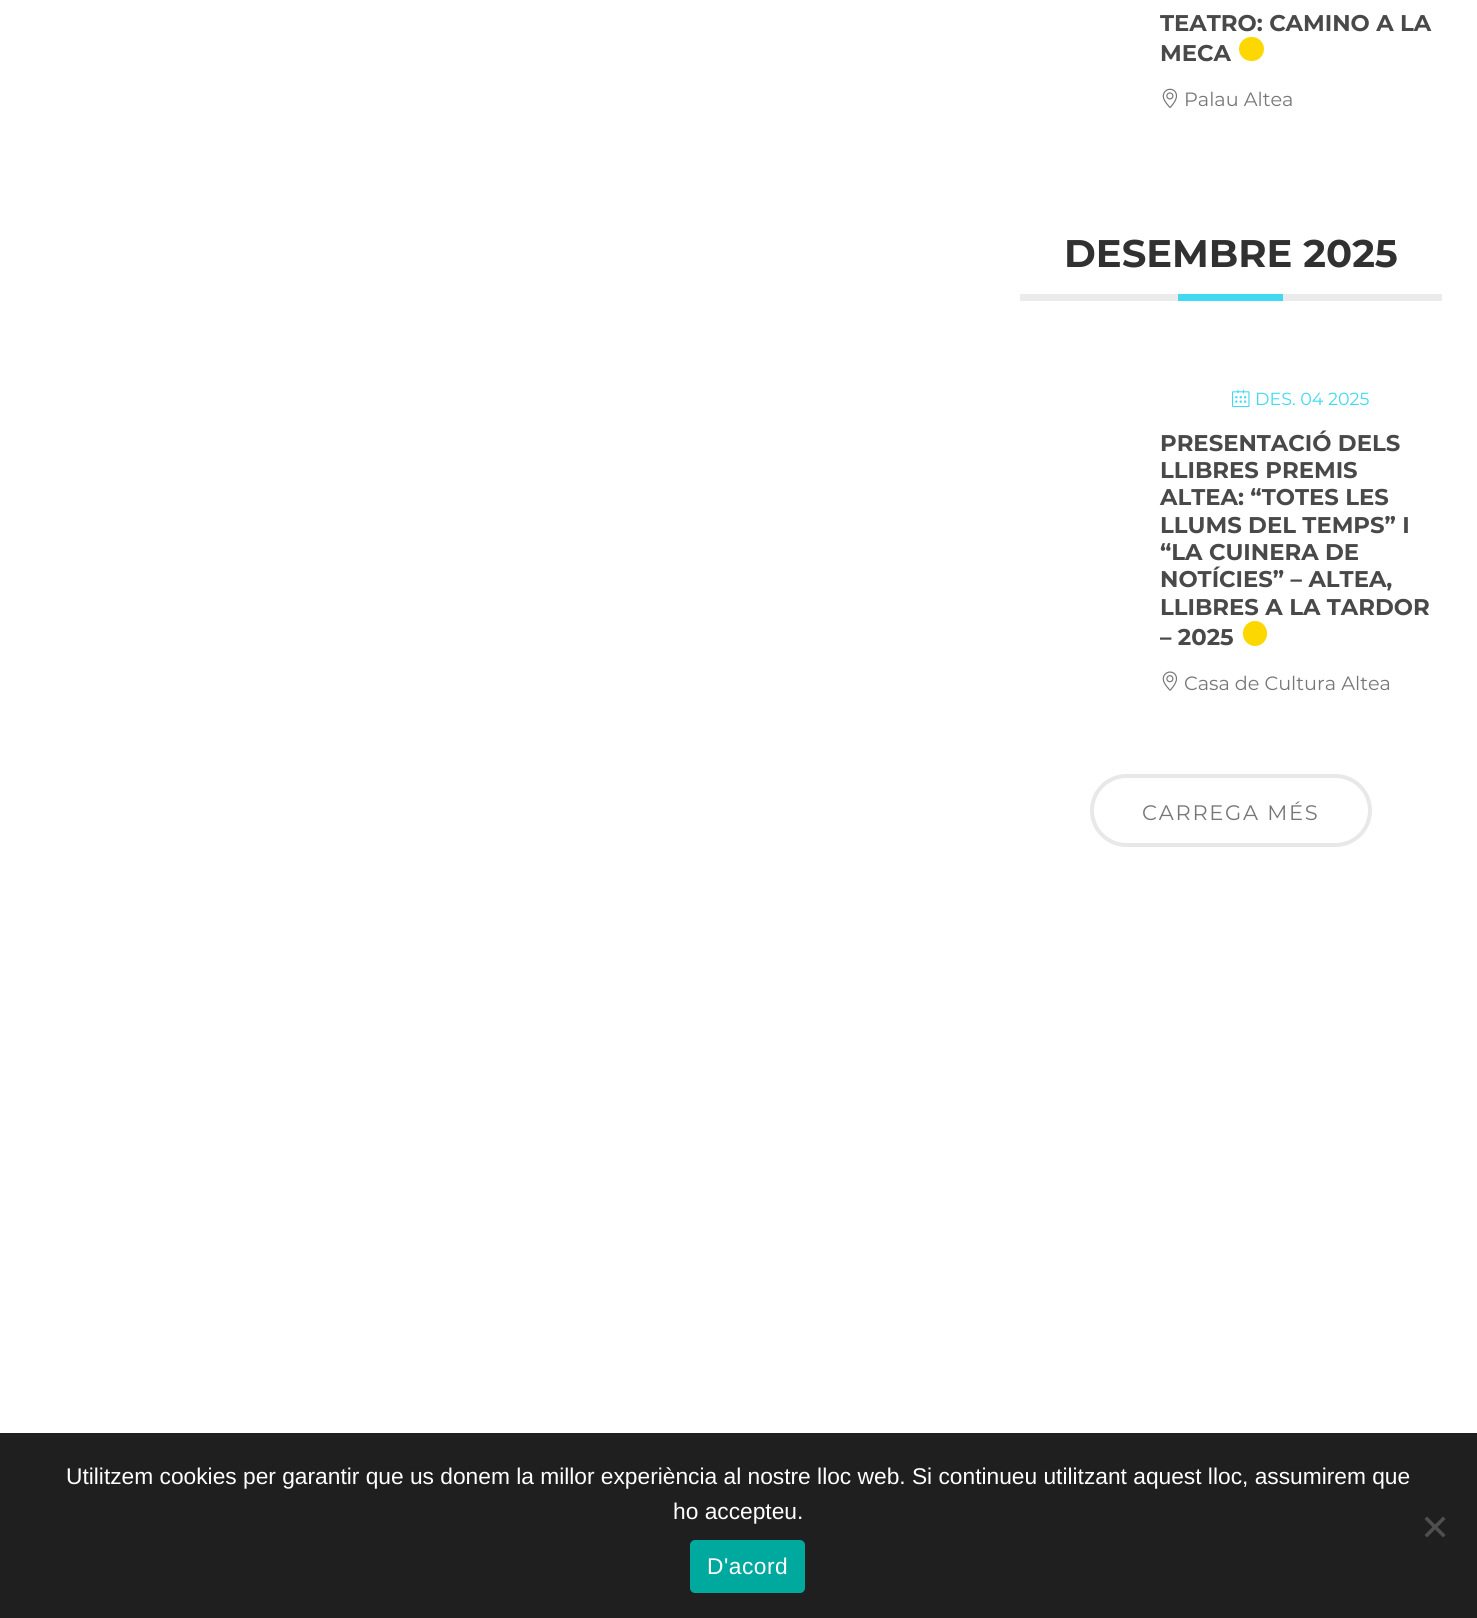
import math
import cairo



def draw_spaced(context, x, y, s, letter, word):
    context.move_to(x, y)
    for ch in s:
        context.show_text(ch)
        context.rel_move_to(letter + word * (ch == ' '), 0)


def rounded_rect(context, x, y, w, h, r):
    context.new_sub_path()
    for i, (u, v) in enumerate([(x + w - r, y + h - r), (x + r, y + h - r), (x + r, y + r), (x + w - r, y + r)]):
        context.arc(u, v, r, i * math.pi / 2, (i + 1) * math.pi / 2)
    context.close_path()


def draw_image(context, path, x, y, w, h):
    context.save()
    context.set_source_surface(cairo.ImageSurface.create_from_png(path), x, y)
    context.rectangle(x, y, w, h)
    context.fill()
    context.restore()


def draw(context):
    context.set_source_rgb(1, 1, 1)
    context.paint()
    context.set_source_rgb(31 / 255, 31 / 255, 31 / 255)
    context.rectangle(0, 1433, 1477, 185)
    context.fill()
    context.set_source_rgb(253 / 255, 215 / 255, 0)
    rounded_rect(context, 1239, 37, 25, 24, 12)
    context.fill()
    draw_image(context, "images/1.png", 1162, 88, 16, 20)
    context.set_source_rgb(235 / 255, 235 / 255, 235 / 255)
    context.rectangle(1020, 294, 422, 7)
    context.fill()
    context.set_source_rgb(64 / 255, 217 / 255, 241 / 255)
    context.rectangle(1178, 294, 105, 7)
    context.fill()
    draw_image(context, "images/2.png", 1232, 389, 18, 19)
    context.set_source_rgb(253 / 255, 215 / 255, 0)
    rounded_rect(context, 1243, 621, 24, 25, 12)
    context.fill()
    draw_image(context, "images/3.png", 1162, 671, 16, 20)
    rounded_rect(context, 1092, 776, 278, 69, 34.5)
    context.set_source_rgb(232 / 255, 232 / 255, 232 / 255)
    context.set_line_width(4)
    context.stroke()
    context.set_source_rgb(79 / 255, 79 / 255, 79 / 255)
    context.new_path()
    context.move_to(1443, 1516.5)
    context.line_to(1445.5, 1519)
    context.line_to(1427, 1537.5)
    context.line_to(1424.5, 1535)
    context.close_path()
    context.fill()
    context.new_path()
    context.move_to(1424.5, 1519)
    context.line_to(1427, 1516.5)
    context.line_to(1445.5, 1535)
    context.line_to(1443, 1537.5)
    context.close_path()
    context.fill()
    context.set_source_rgb(0, 169 / 255, 157 / 255)
    rounded_rect(context, 690, 1540, 115, 53, 5)
    context.fill()
    context.select_font_face("Montserrat", cairo.FontSlant.NORMAL, cairo.FontWeight.BOLD)
    context.set_font_size(22.75)
    context.set_source_rgb(73 / 255, 73 / 255, 73 / 255)
    context.move_to(1160, 31)
    context.show_text("TEATRO: CAMINO A LA")
    context.move_to(1160, 61)
    context.show_text("MECA")
    context.select_font_face("Montserrat")
    context.set_font_size(19.25)
    context.set_source_rgb(119 / 255, 119 / 255, 119 / 255)
    context.move_to(1184, 106)
    context.show_text("Palau Altea")
    context.select_font_face("Montserrat", cairo.FontSlant.NORMAL, cairo.FontWeight.BOLD)
    context.set_font_size(38.5)
    context.set_source_rgb(49 / 255, 49 / 255, 49 / 255)
    context.move_to(1064, 267)
    context.show_text("DESEMBRE 2025")
    context.select_font_face("Montserrat")
    context.set_font_size(17.5)
    context.set_source_rgb(64 / 255, 217 / 255, 241 / 255)
    context.move_to(1255, 405)
    context.show_text("DES. 04 2025")
    context.select_font_face("Montserrat", cairo.FontSlant.NORMAL, cairo.FontWeight.BOLD)
    context.set_font_size(22.75)
    context.set_source_rgb(73 / 255, 73 / 255, 73 / 255)
    context.move_to(1160, 451)
    context.show_text("PRESENTACIÓ DELS")
    context.move_to(1160, 478)
    context.show_text("LLIBRES PREMIS")
    context.move_to(1160, 505)
    context.show_text("ALTEA: “TOTES LES")
    context.move_to(1160, 533)
    context.show_text("LLUMS DEL TEMPS” I")
    context.move_to(1160, 560)
    context.show_text("“LA CUINERA DE")
    context.move_to(1160, 587)
    context.show_text("NOTÍCIES” – ALTEA,")
    context.move_to(1160, 615)
    context.show_text("LLIBRES A LA TARDOR")
    context.move_to(1160, 645)
    context.show_text("– 2025")
    context.select_font_face("Montserrat")
    context.set_font_size(19.25)
    context.set_source_rgb(119 / 255, 119 / 255, 119 / 255)
    context.move_to(1184, 690)
    context.show_text("Casa de Cultura Altea")
    context.set_font_size(21)
    draw_spaced(context, 1142, 820, "CARREGA MÉS", 1.75, 0)
    context.select_font_face("Liberation Sans")
    context.set_font_size(22.75)
    context.set_source_rgb(1, 1, 1)
    context.move_to(66, 1484)
    context.show_text("Utilitzem cookies per garantir que us donem la millor experiència al nostre lloc web. Si continueu utilitzant aquest lloc, assumirem que")
    context.move_to(673, 1519)
    context.show_text("ho accepteu.")
    draw_spaced(context, 707, 1574, "D'acord", 0.5, 0)


surface = cairo.ImageSurface(cairo.Format.RGB24, 1477, 1618)
context = cairo.Context(surface)
options = cairo.FontOptions()
options.set_hint_metrics(cairo.HintMetrics.OFF)
options.set_hint_style(cairo.HintStyle.NONE)
context.set_font_options(options)
context.set_miter_limit(4)
draw(context)
surface.write_to_png("out.png")
